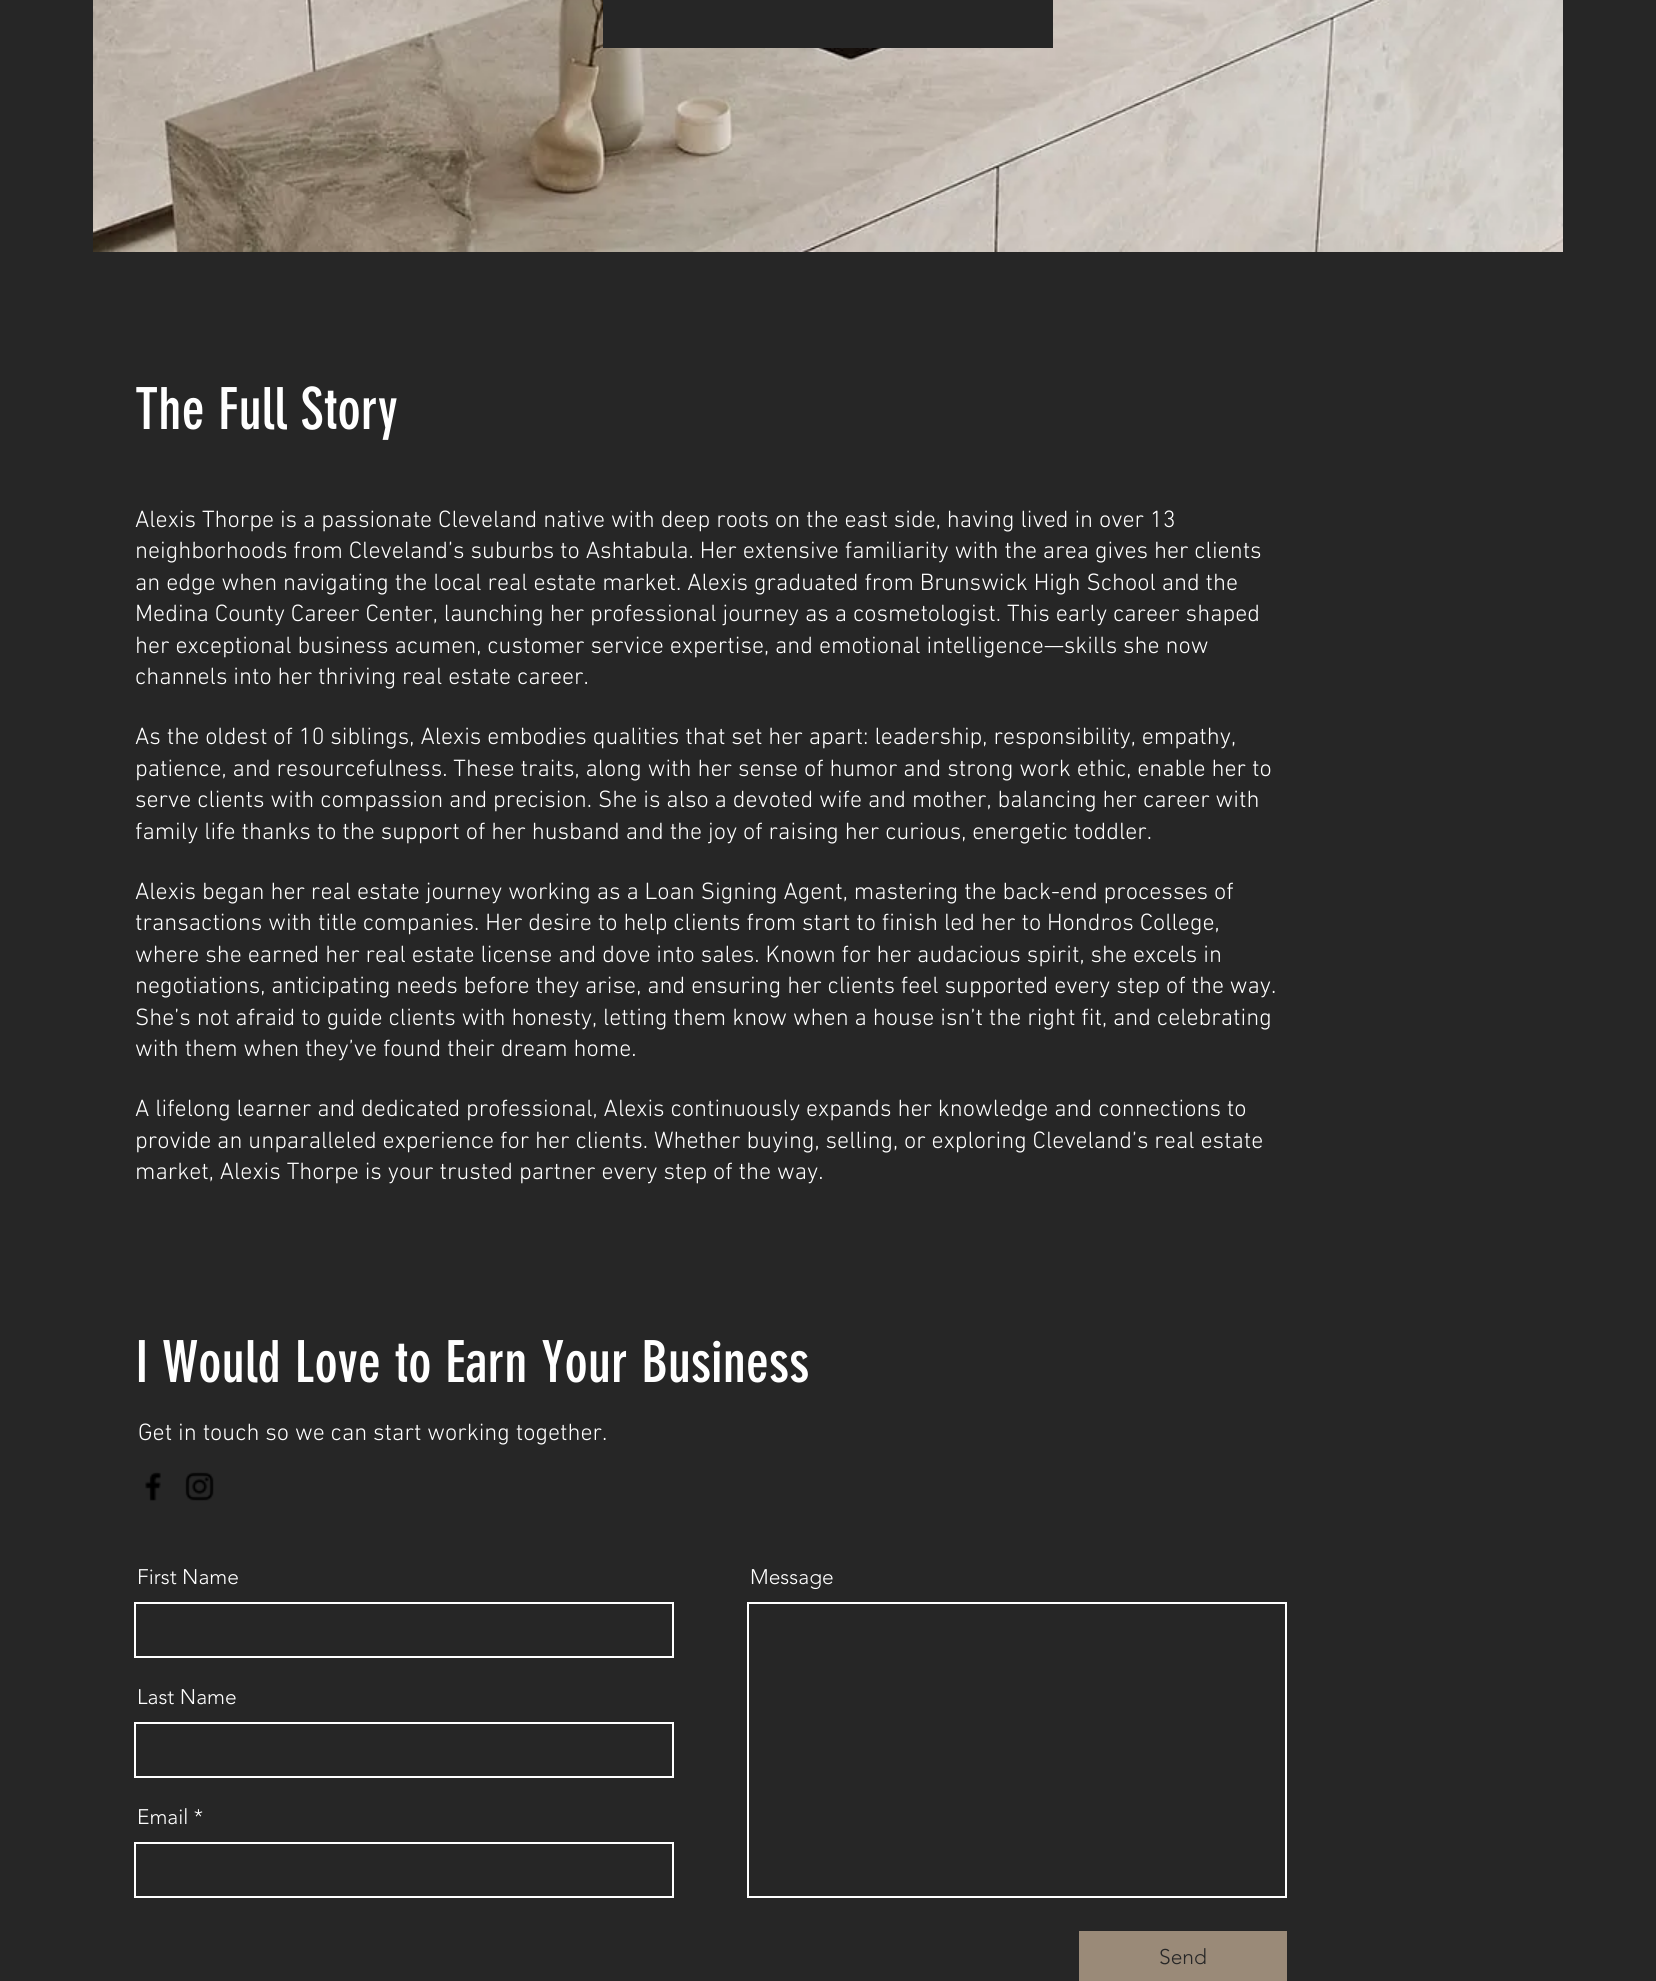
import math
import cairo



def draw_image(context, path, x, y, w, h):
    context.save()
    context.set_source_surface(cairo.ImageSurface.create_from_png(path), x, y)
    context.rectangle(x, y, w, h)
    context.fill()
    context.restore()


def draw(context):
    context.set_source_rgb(38 / 255, 38 / 255, 38 / 255)
    context.paint()
    draw_image(context, "images/1.png", 93, 0, 1470, 252)
    context.set_source_rgb(38 / 255, 38 / 255, 38 / 255)
    context.rectangle(603, 0, 450, 48)
    context.fill()
    draw_image(context, "images/2.png", 145, 1472, 16, 29)
    draw_image(context, "images/3.png", 185, 1472, 29, 29)
    context.rectangle(135, 1603, 538, 54)
    context.set_source_rgb(1, 1, 1)
    context.stroke()
    context.rectangle(748, 1603, 538, 294)
    context.stroke()
    context.rectangle(135, 1723, 538, 54)
    context.stroke()
    context.rectangle(135, 1843, 538, 54)
    context.stroke()
    context.set_source_rgb(154 / 255, 138 / 255, 120 / 255)
    context.rectangle(1079, 1931, 208, 50)
    context.fill()
    context.select_font_face("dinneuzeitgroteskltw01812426")
    context.set_font_size(57)
    context.set_source_rgb(1, 1, 1)
    context.move_to(135, 429)
    context.show_text("The Full Story")
    context.select_font_face("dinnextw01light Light")
    context.set_font_size(24)
    context.move_to(135, 527)
    context.show_text("Alexis Thorpe is a passionate Cleveland native with deep roots on the east side, having lived in over 13")
    context.move_to(135, 558)
    context.show_text("neighborhoods from Cleveland’s suburbs to Ashtabula. Her extensive familiarity with the area gives her clients")
    context.move_to(135, 590)
    context.show_text("an edge when navigating the local real estate market. Alexis graduated from Brunswick High School and the")
    context.move_to(135, 621)
    context.show_text("Medina County Career Center, launching her professional journey as a cosmetologist. This early career shaped")
    context.move_to(135, 653)
    context.show_text("her exceptional business acumen, customer service expertise, and emotional intelligence—skills she now")
    context.move_to(135, 684)
    context.show_text("channels into her thriving real estate career.")
    context.move_to(135, 744)
    context.show_text("As the oldest of 10 siblings, Alexis embodies qualities that set her apart: leadership, responsibility, empathy,")
    context.move_to(135, 776)
    context.show_text("patience, and resourcefulness. These traits, along with her sense of humor and strong work ethic, enable her to")
    context.move_to(135, 807)
    context.show_text("serve clients with compassion and precision. She is also a devoted wife and mother, balancing her career with")
    context.move_to(135, 839)
    context.show_text("family life thanks to the support of her husband and the joy of raising her curious, energetic toddler.")
    context.move_to(135, 899)
    context.show_text("Alexis began her real estate journey working as a Loan Signing Agent, mastering the back-end processes of")
    context.move_to(135, 930)
    context.show_text("transactions with title companies. Her desire to help clients from start to finish led her to Hondros College,")
    context.move_to(135, 962)
    context.show_text("where she earned her real estate license and dove into sales. Known for her audacious spirit, she excels in")
    context.move_to(135, 993)
    context.show_text("negotiations, anticipating needs before they arise, and ensuring her clients feel supported every step of the way.")
    context.move_to(135, 1025)
    context.show_text("She’s not afraid to guide clients with honesty, letting them know when a house isn’t the right fit, and celebrating")
    context.move_to(135, 1056)
    context.show_text("with them when they’ve found their dream home.")
    context.move_to(135, 1116)
    context.show_text("A lifelong learner and dedicated professional, Alexis continuously expands her knowledge and connections to")
    context.move_to(135, 1148)
    context.show_text("provide an unparalleled experience for her clients. Whether buying, selling, or exploring Cleveland’s real estate")
    context.move_to(135, 1179)
    context.show_text("market, Alexis Thorpe is your trusted partner every step of the way.")
    context.select_font_face("dinneuzeitgroteskltw01812426")
    context.set_font_size(57)
    context.move_to(135, 1382)
    context.show_text("I Would Love to Earn Your Business")
    context.select_font_face("dinnextw01light Light")
    context.set_font_size(24)
    context.move_to(138, 1440)
    context.show_text("Get in touch so we can start working together.")
    context.select_font_face("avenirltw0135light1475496 Light")
    context.set_font_size(21)
    context.move_to(137, 1584)
    context.show_text("First Name")
    context.move_to(750, 1584)
    context.show_text("Message")
    context.move_to(137, 1704)
    context.show_text("Last Name")
    context.move_to(137, 1824)
    context.show_text("Email *")
    context.set_source_rgb(38 / 255, 38 / 255, 38 / 255)
    context.move_to(1159, 1964)
    context.show_text("Send")


surface = cairo.ImageSurface(cairo.Format.RGB24, 1656, 1981)
context = cairo.Context(surface)
options = cairo.FontOptions()
options.set_hint_metrics(cairo.HintMetrics.OFF)
options.set_hint_style(cairo.HintStyle.NONE)
context.set_font_options(options)
context.set_miter_limit(4)
draw(context)
surface.write_to_png("out.png")
